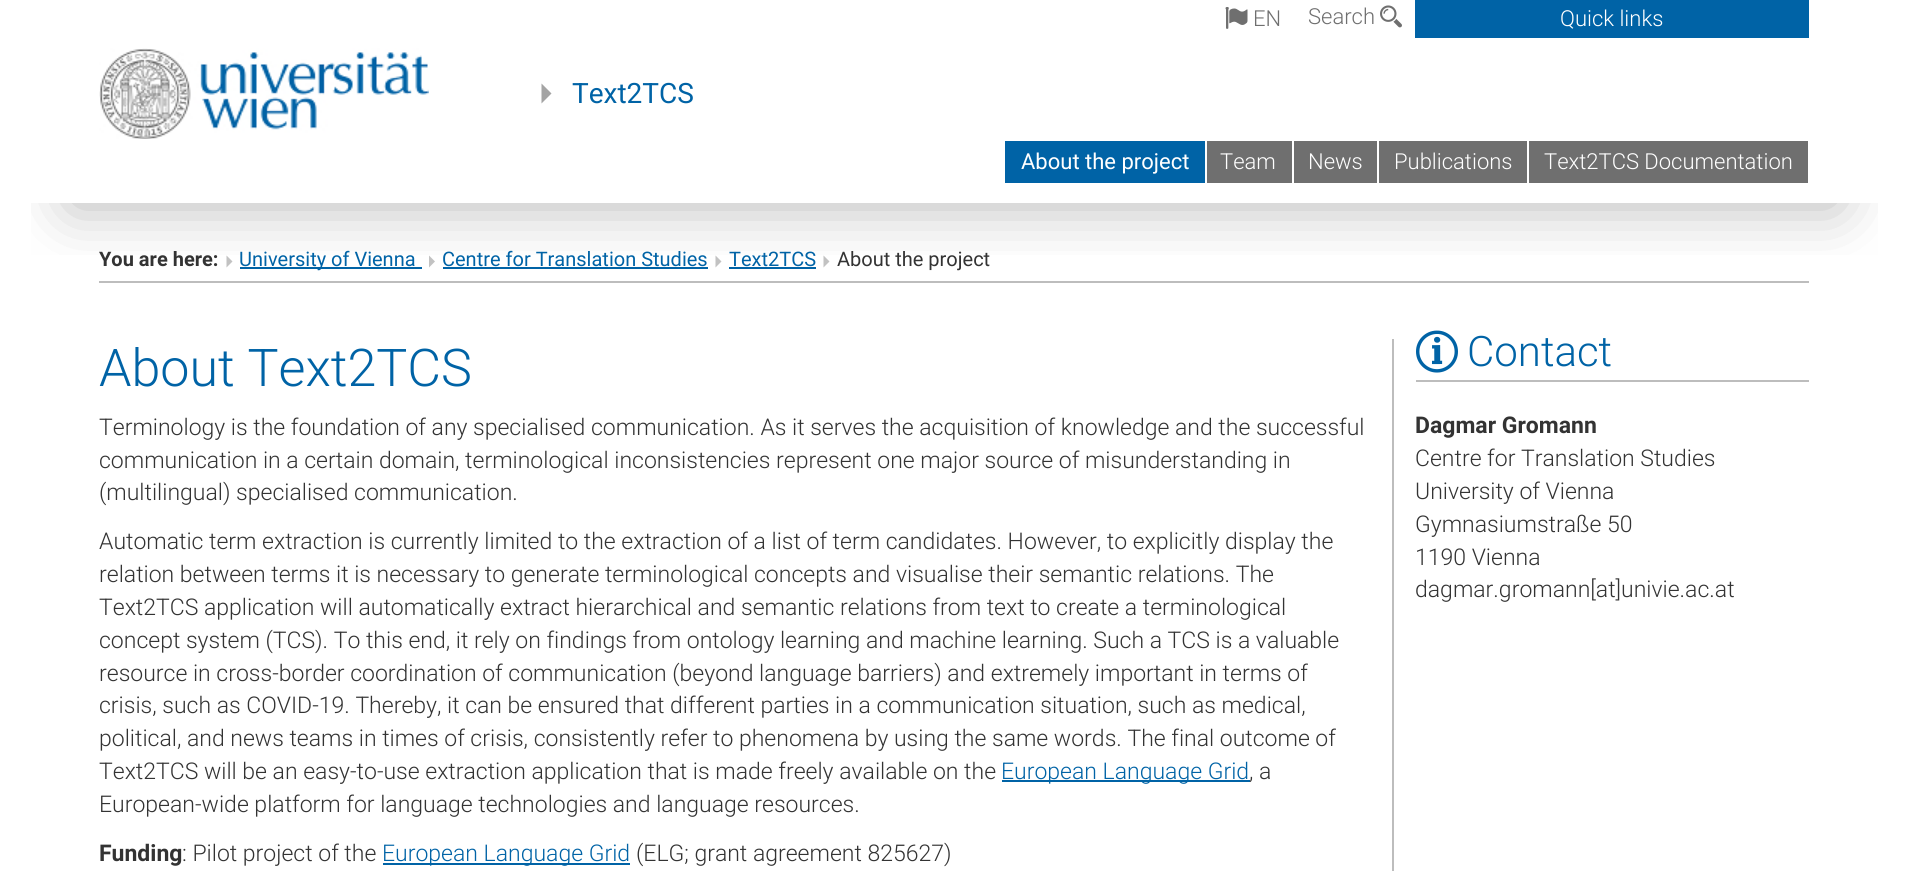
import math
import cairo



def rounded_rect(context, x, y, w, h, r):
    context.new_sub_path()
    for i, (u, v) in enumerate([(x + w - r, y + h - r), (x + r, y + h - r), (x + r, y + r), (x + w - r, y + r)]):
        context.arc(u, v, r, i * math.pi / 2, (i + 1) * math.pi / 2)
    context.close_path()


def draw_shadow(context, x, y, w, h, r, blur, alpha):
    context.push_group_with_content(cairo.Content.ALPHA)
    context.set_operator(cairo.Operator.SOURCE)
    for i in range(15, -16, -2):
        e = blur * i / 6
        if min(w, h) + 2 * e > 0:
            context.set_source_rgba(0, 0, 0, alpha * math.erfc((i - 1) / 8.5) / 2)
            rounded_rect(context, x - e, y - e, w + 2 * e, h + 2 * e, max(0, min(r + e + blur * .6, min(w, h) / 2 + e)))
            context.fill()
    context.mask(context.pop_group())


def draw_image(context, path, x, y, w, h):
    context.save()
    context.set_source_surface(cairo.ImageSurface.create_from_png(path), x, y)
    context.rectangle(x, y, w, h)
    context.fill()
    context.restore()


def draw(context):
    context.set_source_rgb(1, 1, 1)
    context.paint()
    context.set_source_rgb(194 / 255, 194 / 255, 194 / 255)
    context.new_path()
    context.move_to(226.5, 255.5)
    context.line_to(226.5, 267.5)
    context.line_to(232.5, 261.5)
    context.close_path()
    context.fill()
    context.set_source_rgb(0, 99 / 255, 166 / 255)
    context.rectangle(240, 267, 182, 2)
    context.fill()
    context.set_source_rgb(194 / 255, 194 / 255, 194 / 255)
    context.new_path()
    context.move_to(429, 255.5)
    context.line_to(429, 267.5)
    context.line_to(435, 261.5)
    context.close_path()
    context.fill()
    context.set_source_rgb(0, 99 / 255, 166 / 255)
    context.rectangle(443, 267, 265, 2)
    context.fill()
    context.set_source_rgb(194 / 255, 194 / 255, 194 / 255)
    context.new_path()
    context.move_to(715.5, 255.5)
    context.line_to(715.5, 267.5)
    context.line_to(721.5, 261.5)
    context.close_path()
    context.fill()
    context.set_source_rgb(0, 99 / 255, 166 / 255)
    context.rectangle(729, 267, 87, 2)
    context.fill()
    context.set_source_rgb(194 / 255, 194 / 255, 194 / 255)
    context.new_path()
    context.move_to(823.5, 255.5)
    context.line_to(823.5, 267.5)
    context.line_to(829.5, 261.5)
    context.close_path()
    context.fill()
    context.set_source_rgb(189 / 255, 189 / 255, 189 / 255)
    context.rectangle(99, 281, 1710, 2)
    context.fill()
    context.save()
    context.rectangle(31, 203, 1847, 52)
    context.clip()
    context.set_source_rgb(70 / 255, 70 / 255, 70 / 255)
    draw_shadow(context, 71, 21, 1767, 185, 0, 30, 0.4)
    context.restore()
    context.set_source_rgb(1, 1, 1)
    context.new_path()
    context.move_to(-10, 0)
    context.line_to(-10, 203)
    context.line_to(1775, 203)
    context.line_to(1775, 202)
    context.line_to(62, 202)
    context.line_to(62, 0)
    context.close_path()
    context.fill()
    context.new_path()
    context.move_to(134, 202)
    context.line_to(134, 203)
    context.line_to(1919, 203)
    context.line_to(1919, 0)
    context.line_to(1846, 0)
    context.line_to(1846, 202)
    context.close_path()
    context.fill()
    draw_image(context, "images/1.png", 1225, 7, 23, 22)
    draw_image(context, "images/2.png", 1380, 5, 22, 23)
    context.set_source_rgb(0, 99 / 255, 166 / 255)
    context.rectangle(1415, 0, 394, 38)
    context.fill()
    draw_image(context, "images/3.png", 99, 48, 330, 91)
    context.set_source_rgb(164 / 255, 164 / 255, 164 / 255)
    context.new_path()
    context.move_to(541.5, 83.5)
    context.line_to(541.5, 103.5)
    context.line_to(551.5, 93.5)
    context.close_path()
    context.fill()
    context.set_source_rgb(0, 99 / 255, 166 / 255)
    context.rectangle(1005, 141, 200, 42)
    context.fill()
    context.set_source_rgb(111 / 255, 111 / 255, 111 / 255)
    context.rectangle(1207, 141, 85, 42)
    context.fill()
    context.rectangle(1294, 141, 83, 42)
    context.fill()
    context.rectangle(1379, 141, 148, 42)
    context.fill()
    context.rectangle(1529, 141, 279, 42)
    context.fill()
    context.set_source_rgb(189 / 255, 189 / 255, 189 / 255)
    context.rectangle(1392, 339, 2, 532)
    context.fill()
    context.set_source_rgb(0, 99 / 255, 166 / 255)
    context.rectangle(1002, 780, 248, 2)
    context.fill()
    context.rectangle(383, 863, 247, 2)
    context.fill()
    context.set_source_rgb(189 / 255, 189 / 255, 189 / 255)
    context.rectangle(1416, 380, 393, 2)
    context.fill()
    draw_image(context, "images/4.png", 1416, 330, 42, 43)
    context.select_font_face("Roboto Light")
    context.set_font_size(22)
    context.set_source_rgb(111 / 255, 111 / 255, 111 / 255)
    context.move_to(1253, 26)
    context.show_text("EN")
    context.move_to(1308, 24)
    context.show_text("Search")
    context.set_source_rgb(1, 1, 1)
    context.move_to(1560, 26)
    context.show_text("Quick links")
    context.select_font_face("Roboto")
    context.set_font_size(28)
    context.set_source_rgb(0, 99 / 255, 166 / 255)
    context.move_to(572, 103)
    context.show_text("Text2TCS")
    context.set_font_size(22)
    context.set_source_rgb(1, 1, 1)
    context.move_to(1021, 169)
    context.show_text("About the project")
    context.select_font_face("Roboto Light")
    context.move_to(1220, 169)
    context.show_text("Team")
    context.move_to(1308, 169)
    context.show_text("News")
    context.move_to(1394, 169)
    context.show_text("Publications")
    context.move_to(1544, 169)
    context.show_text("Text2TCS Documentation")
    context.select_font_face("Roboto", cairo.FontSlant.NORMAL, cairo.FontWeight.BOLD)
    context.set_font_size(20)
    context.set_source_rgb(51 / 255, 51 / 255, 51 / 255)
    context.move_to(99, 266)
    context.show_text("You are here:")
    context.select_font_face("Roboto")
    context.set_source_rgb(0, 99 / 255, 166 / 255)
    context.move_to(239, 266)
    context.show_text("University of Vienna")
    context.move_to(442, 266)
    context.show_text("Centre for Translation Studies")
    context.move_to(729, 266)
    context.show_text("Text2TCS")
    context.set_source_rgb(51 / 255, 51 / 255, 51 / 255)
    context.move_to(837, 266)
    context.show_text("About the project")
    context.select_font_face("Roboto Light")
    context.set_font_size(52)
    context.set_source_rgb(0, 99 / 255, 166 / 255)
    context.move_to(99, 386)
    context.show_text("About Text2TCS")
    context.set_font_size(23)
    context.set_source_rgb(51 / 255, 51 / 255, 51 / 255)
    context.move_to(99, 435)
    context.show_text("Terminology is the foundation of any specialised communication. As it serves the acquisition of knowledge and the successful")
    context.move_to(99, 468)
    context.show_text("communication in a certain domain, terminological inconsistencies represent one major source of misunderstanding in")
    context.move_to(99, 500)
    context.show_text("(multilingual) specialised communication.")
    context.move_to(99, 549)
    context.show_text("Automatic term extraction is currently limited to the extraction of a list of term candidates. However, to explicitly display the")
    context.move_to(99, 582)
    context.show_text("relation between terms it is necessary to generate terminological concepts and visualise their semantic relations. The")
    context.move_to(99, 615)
    context.show_text("Text2TCS application will automatically extract hierarchical and semantic relations from text to create a terminological")
    context.move_to(99, 648)
    context.show_text("concept system (TCS). To this end, it rely on findings from ontology learning and machine learning. Such a TCS is a valuable")
    context.move_to(99, 681)
    context.show_text("resource in cross-border coordination of communication (beyond language barriers) and extremely important in terms of")
    context.move_to(99, 713)
    context.show_text("crisis, such as COVID-19. Thereby, it can be ensured that different parties in a communication situation, such as medical,")
    context.move_to(99, 746)
    context.show_text("political, and news teams in times of crisis, consistently refer to phenomena by using the same words. The final outcome of")
    context.move_to(99, 779)
    context.show_text("Text2TCS will be an easy-to-use extraction application that is made freely available on the")
    context.set_source_rgb(0, 99 / 255, 166 / 255)
    context.move_to(1001, 779)
    context.show_text("European Language Grid")
    context.set_source_rgb(51 / 255, 51 / 255, 51 / 255)
    context.move_to(1249, 779)
    context.show_text(", a")
    context.move_to(99, 812)
    context.show_text("European-wide platform for language technologies and language resources.")
    context.select_font_face("Roboto", cairo.FontSlant.NORMAL, cairo.FontWeight.BOLD)
    context.move_to(99, 861)
    context.show_text("Funding")
    context.select_font_face("Roboto Light")
    context.move_to(182, 861)
    context.show_text(": Pilot project of the")
    context.set_source_rgb(0, 99 / 255, 166 / 255)
    context.move_to(382, 861)
    context.show_text("European Language Grid")
    context.set_source_rgb(51 / 255, 51 / 255, 51 / 255)
    context.move_to(636, 861)
    context.show_text("(ELG; grant agreement 825627)")
    context.set_font_size(42)
    context.set_source_rgb(0, 99 / 255, 166 / 255)
    context.move_to(1467, 366)
    context.show_text("Contact")
    context.select_font_face("Roboto", cairo.FontSlant.NORMAL, cairo.FontWeight.BOLD)
    context.set_font_size(23)
    context.set_source_rgb(51 / 255, 51 / 255, 51 / 255)
    context.move_to(1415, 433)
    context.show_text("Dagmar Gromann")
    context.select_font_face("Roboto Light")
    context.move_to(1415, 466)
    context.show_text("Centre for Translation Studies")
    context.move_to(1415, 499)
    context.show_text("University of Vienna")
    context.move_to(1415, 532)
    context.show_text("Gymnasiumstraße 50")
    context.move_to(1415, 565)
    context.show_text("1190 Vienna")
    context.move_to(1415, 597)
    context.show_text("dagmar.gromann[at]univie.ac.at")


surface = cairo.ImageSurface(cairo.Format.RGB24, 1907, 871)
context = cairo.Context(surface)
options = cairo.FontOptions()
options.set_hint_metrics(cairo.HintMetrics.OFF)
options.set_hint_style(cairo.HintStyle.NONE)
context.set_font_options(options)
context.set_miter_limit(4)
draw(context)
surface.write_to_png("out.png")
